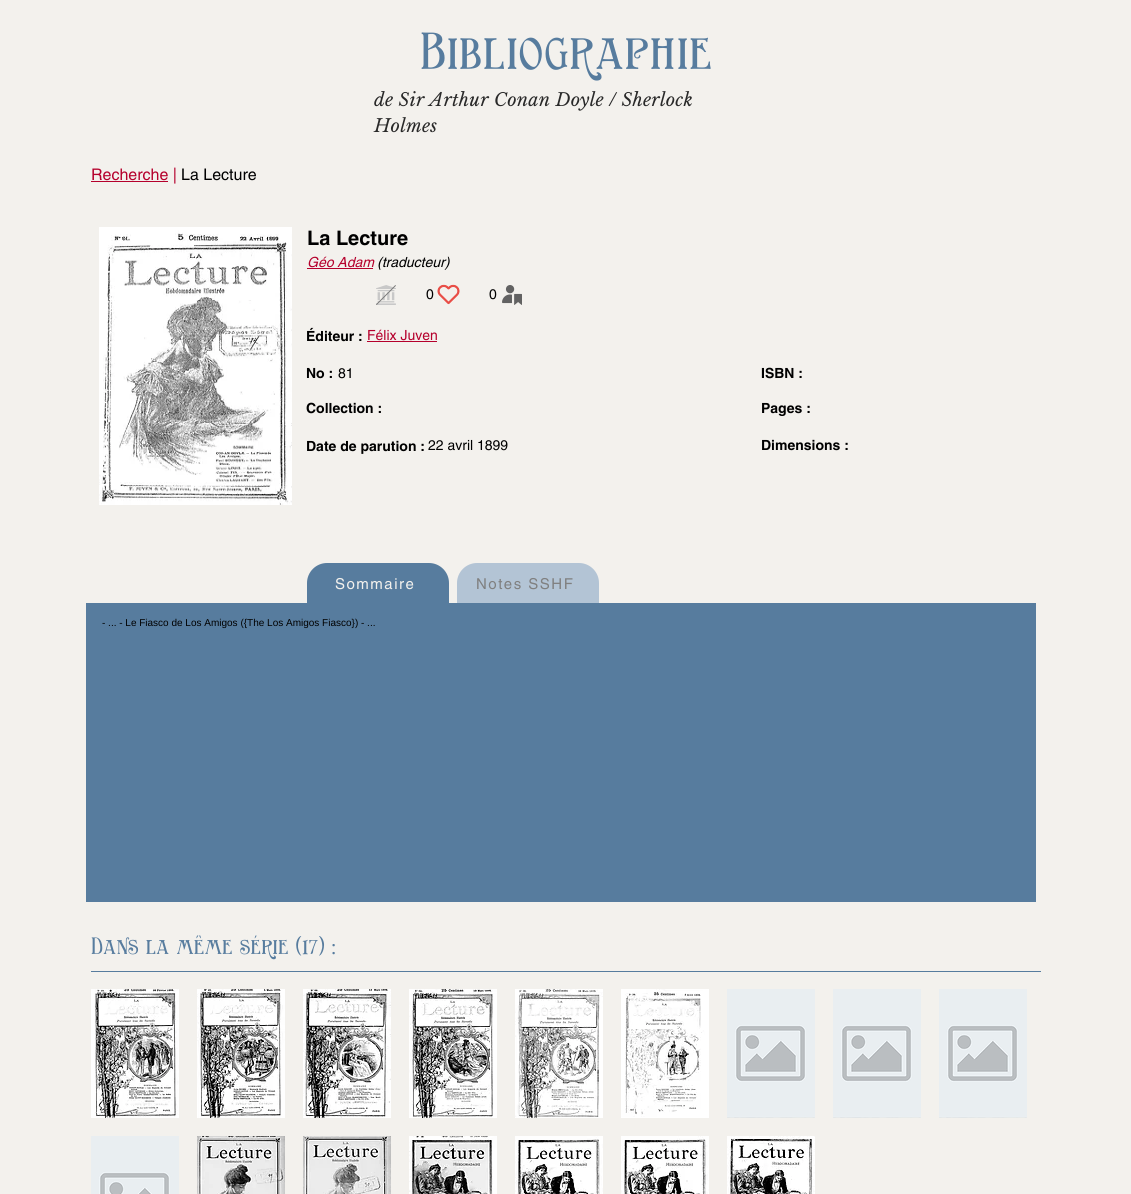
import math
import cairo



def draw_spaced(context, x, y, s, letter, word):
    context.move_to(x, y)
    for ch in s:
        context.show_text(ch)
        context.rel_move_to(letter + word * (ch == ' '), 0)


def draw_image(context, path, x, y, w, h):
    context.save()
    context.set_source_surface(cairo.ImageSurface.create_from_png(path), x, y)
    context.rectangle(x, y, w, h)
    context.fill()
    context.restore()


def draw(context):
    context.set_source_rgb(243 / 255, 241 / 255, 237 / 255)
    context.paint()
    context.set_source_rgb(181 / 255, 0, 44 / 255)
    context.rectangle(91, 181, 77, 1)
    context.fill()
    draw_image(context, "images/1.png", 99, 227, 193, 278)
    context.rectangle(307, 268, 66, 1)
    context.fill()
    draw_image(context, "images/2.png", 376, 285, 20, 20)
    draw_image(context, "images/3.png", 437, 284, 23, 21)
    draw_image(context, "images/4.png", 502, 285, 20, 20)
    context.rectangle(367, 341, 70, 1)
    context.fill()
    context.set_source_rgb(87 / 255, 124 / 255, 158 / 255)
    context.new_path()
    context.move_to(327, 563)
    context.line_to(429, 563)
    context.curve_to(440, 563, 449, 572, 449, 583)
    context.line_to(449, 603)
    context.line_to(307, 603)
    context.line_to(307, 583)
    context.curve_to(307, 572, 316, 563, 327, 563)
    context.close_path()
    context.fill()
    context.set_source_rgb(179 / 255, 196 / 255, 213 / 255)
    context.new_path()
    context.move_to(477, 563)
    context.line_to(579, 563)
    context.curve_to(590, 563, 599, 572, 599, 583)
    context.line_to(599, 603)
    context.line_to(457, 603)
    context.line_to(457, 583)
    context.curve_to(457, 572, 466, 563, 477, 563)
    context.close_path()
    context.fill()
    context.set_source_rgb(87 / 255, 124 / 255, 158 / 255)
    context.rectangle(86, 603, 950, 299)
    context.fill()
    context.rectangle(91, 971, 950, 1)
    context.fill()
    draw_image(context, "images/5.png", 91, 989, 88, 129)
    draw_image(context, "images/6.png", 91, 1136, 88, 58)
    draw_image(context, "images/7.png", 197, 989, 88, 129)
    draw_image(context, "images/8.png", 197, 1136, 88, 58)
    draw_image(context, "images/9.png", 303, 989, 88, 129)
    draw_image(context, "images/10.png", 303, 1136, 88, 58)
    draw_image(context, "images/11.png", 409, 989, 88, 129)
    draw_image(context, "images/12.png", 409, 1136, 88, 58)
    draw_image(context, "images/13.png", 515, 989, 88, 129)
    draw_image(context, "images/14.png", 515, 1136, 88, 58)
    draw_image(context, "images/15.png", 621, 989, 88, 129)
    draw_image(context, "images/16.png", 621, 1136, 88, 58)
    draw_image(context, "images/17.png", 727, 989, 88, 129)
    draw_image(context, "images/18.png", 727, 1136, 88, 58)
    draw_image(context, "images/17.png", 833, 989, 88, 129)
    draw_image(context, "images/17.png", 939, 989, 88, 129)
    context.select_font_face("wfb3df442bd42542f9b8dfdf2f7")
    context.set_font_size(44)
    draw_spaced(context, 420, 69, "Bibliographie", 0.5, 0)
    context.select_font_face("Libre Baskerville", cairo.FontSlant.ITALIC)
    context.set_font_size(18)
    context.set_source_rgb(41 / 255, 41 / 255, 41 / 255)
    draw_spaced(context, 374, 106, "de Sir Arthur Conan Doyle / Sherlock", 0.2, 0)
    draw_spaced(context, 374, 132, "Holmes", 0.2, 0)
    context.select_font_face("helvetica")
    context.set_font_size(16)
    context.set_source_rgb(181 / 255, 0, 44 / 255)
    context.move_to(91, 180)
    context.show_text("Recherche |")
    context.set_source_rgb(0, 0, 0)
    context.move_to(181, 180)
    context.show_text("La Lecture")
    context.select_font_face("helvetica", cairo.FontSlant.NORMAL, cairo.FontWeight.BOLD)
    context.set_font_size(20)
    context.move_to(307, 245)
    context.show_text("La Lecture")
    context.select_font_face("helvetica", cairo.FontSlant.ITALIC)
    context.set_font_size(14)
    context.set_source_rgb(181 / 255, 0, 44 / 255)
    context.move_to(307, 267)
    context.show_text("Géo Adam")
    context.set_source_rgb(0, 0, 0)
    context.move_to(377, 267)
    context.show_text("(traducteur)")
    context.select_font_face("helvetica")
    context.move_to(426, 299)
    context.show_text("0")
    context.move_to(489, 299)
    context.show_text("0")
    context.select_font_face("helvetica", cairo.FontSlant.NORMAL, cairo.FontWeight.BOLD)
    context.move_to(306, 341)
    context.show_text("Éditeur :")
    context.select_font_face("helvetica")
    context.set_source_rgb(181 / 255, 0, 44 / 255)
    context.move_to(367, 340)
    context.show_text("Félix Juven")
    context.select_font_face("helvetica", cairo.FontSlant.NORMAL, cairo.FontWeight.BOLD)
    context.set_source_rgb(0, 0, 0)
    context.move_to(306, 378)
    context.show_text("No :")
    context.select_font_face("helvetica")
    context.move_to(338, 378)
    context.show_text("81")
    context.select_font_face("helvetica", cairo.FontSlant.NORMAL, cairo.FontWeight.BOLD)
    context.move_to(761, 378)
    context.show_text("ISBN :")
    context.move_to(306, 413)
    context.show_text("Collection :")
    context.move_to(761, 413)
    context.show_text("Pages :")
    context.move_to(306, 451)
    context.show_text("Date de parution :")
    context.select_font_face("helvetica")
    context.move_to(428, 450)
    context.show_text("22 avril 1899")
    context.select_font_face("helvetica", cairo.FontSlant.NORMAL, cairo.FontWeight.BOLD)
    context.move_to(761, 450)
    context.show_text("Dimensions :")
    context.select_font_face("helvetica")
    context.set_font_size(15)
    context.set_source_rgb(243 / 255, 241 / 255, 237 / 255)
    draw_spaced(context, 335, 589, "Sommaire", 1.5, 0)
    context.set_source_rgb(128 / 255, 128 / 255, 128 / 255)
    draw_spaced(context, 476, 589, "Notes SSHF", 1.5, 0)
    context.select_font_face("Liberation Sans")
    context.set_font_size(10)
    context.set_source_rgb(0, 0, 0)
    context.move_to(102, 626)
    context.show_text("- ... - Le Fiasco de Los Amigos ({The Los Amigos Fiasco}) - ...")
    context.select_font_face("wfb3df442bd42542f9b8dfdf2f7")
    context.set_font_size(20)
    context.set_source_rgb(87 / 255, 124 / 255, 158 / 255)
    context.move_to(91, 954)
    context.show_text("Dans la même série (17) :")


surface = cairo.ImageSurface(cairo.Format.RGB24, 1131, 1194)
context = cairo.Context(surface)
options = cairo.FontOptions()
options.set_hint_metrics(cairo.HintMetrics.OFF)
options.set_hint_style(cairo.HintStyle.NONE)
context.set_font_options(options)
context.set_miter_limit(4)
draw(context)
surface.write_to_png("out.png")
